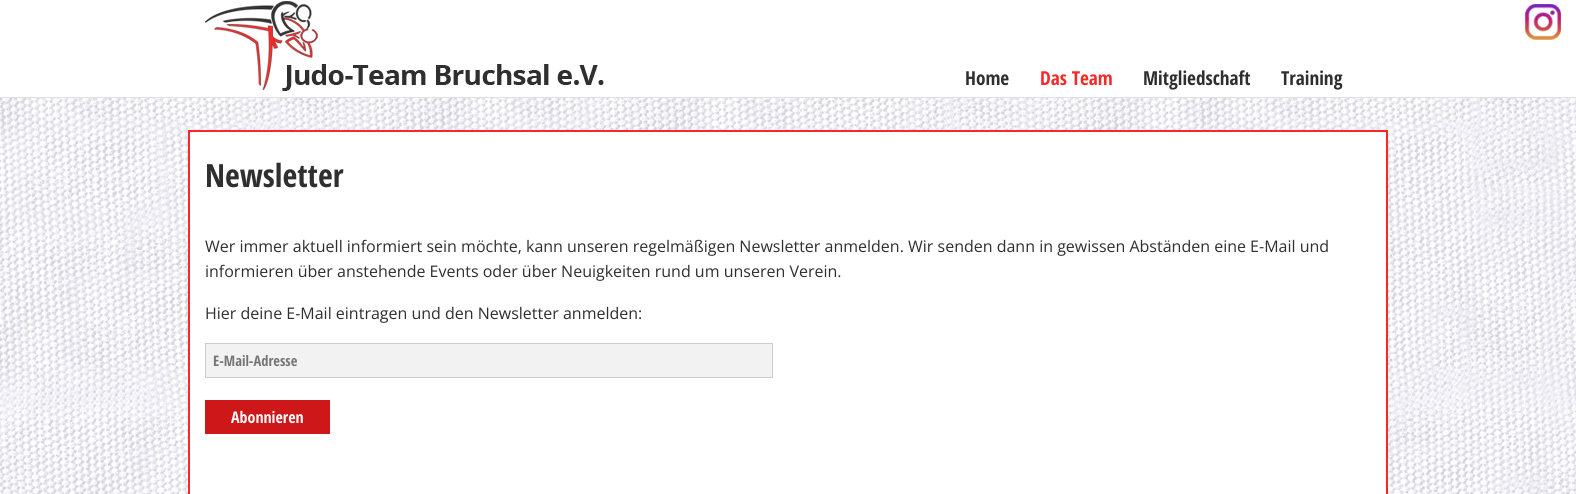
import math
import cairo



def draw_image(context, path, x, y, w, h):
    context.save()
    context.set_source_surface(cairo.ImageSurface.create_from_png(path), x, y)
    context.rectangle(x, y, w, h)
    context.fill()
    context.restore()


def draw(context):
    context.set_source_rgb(1, 1, 1)
    context.paint()
    draw_image(context, "images/1.png", 0, 98, 1576, 396)
    context.set_source_rgb(224 / 255, 224 / 255, 224 / 255)
    context.rectangle(0, 97, 1576, 1)
    context.fill()
    draw_image(context, "images/2.png", 205, 1, 399, 90)
    draw_image(context, "images/3.png", 1525, 4, 36, 36)
    context.rectangle(189, 131, 1198, 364)
    context.set_source_rgb(248 / 255, 40 / 255, 40 / 255)
    context.stroke()
    context.set_source_rgb(1, 1, 1)
    context.rectangle(190, 132, 1196, 362)
    context.fill()
    context.set_source_rgb(242 / 255, 242 / 255, 242 / 255)
    context.rectangle(205.5, 343.5, 567, 34)
    context.fill_preserve()
    context.set_source_rgb(204 / 255, 204 / 255, 204 / 255)
    context.set_line_width(1)
    context.stroke()
    context.set_source_rgb(205 / 255, 23 / 255, 25 / 255)
    context.rectangle(205, 400, 125, 34)
    context.fill()
    context.select_font_face("Open Sans Condensed", cairo.FontSlant.NORMAL, cairo.FontWeight.BOLD)
    context.set_font_size(19.25)
    context.set_source_rgb(47 / 255, 47 / 255, 47 / 255)
    context.move_to(965, 85)
    context.show_text("Home")
    context.set_source_rgb(248 / 255, 40 / 255, 40 / 255)
    context.move_to(1040, 85)
    context.show_text("Das Team")
    context.set_source_rgb(47 / 255, 47 / 255, 47 / 255)
    context.move_to(1143, 85)
    context.show_text("Mitgliedschaft")
    context.move_to(1281, 85)
    context.show_text("Training")
    context.set_font_size(32)
    context.move_to(205, 187)
    context.show_text("Newsletter")
    context.select_font_face("Open Sans")
    context.set_font_size(16)
    context.move_to(205, 252)
    context.show_text("Wer immer aktuell informiert sein möchte, kann unseren regelmäßigen Newsletter anmelden. Wir senden dann in gewissen Abständen eine E-Mail und")
    context.move_to(205, 277)
    context.show_text("informieren über anstehende Events oder über Neuigkeiten rund um unseren Verein.")
    context.move_to(205, 319)
    context.show_text("Hier deine E-Mail eintragen und den Newsletter anmelden:")
    context.select_font_face("Open Sans Condensed", cairo.FontSlant.NORMAL, cairo.FontWeight.BOLD)
    context.set_font_size(14.5)
    context.set_source_rgb(117 / 255, 117 / 255, 117 / 255)
    context.move_to(213, 366)
    context.show_text("E-Mail-Adresse")
    context.set_font_size(16)
    context.set_source_rgb(1, 1, 1)
    context.move_to(231, 423)
    context.show_text("Abonnieren")


surface = cairo.ImageSurface(cairo.Format.RGB24, 1576, 494)
context = cairo.Context(surface)
options = cairo.FontOptions()
options.set_hint_metrics(cairo.HintMetrics.OFF)
options.set_hint_style(cairo.HintStyle.NONE)
context.set_font_options(options)
context.set_miter_limit(4)
draw(context)
surface.write_to_png("out.png")
